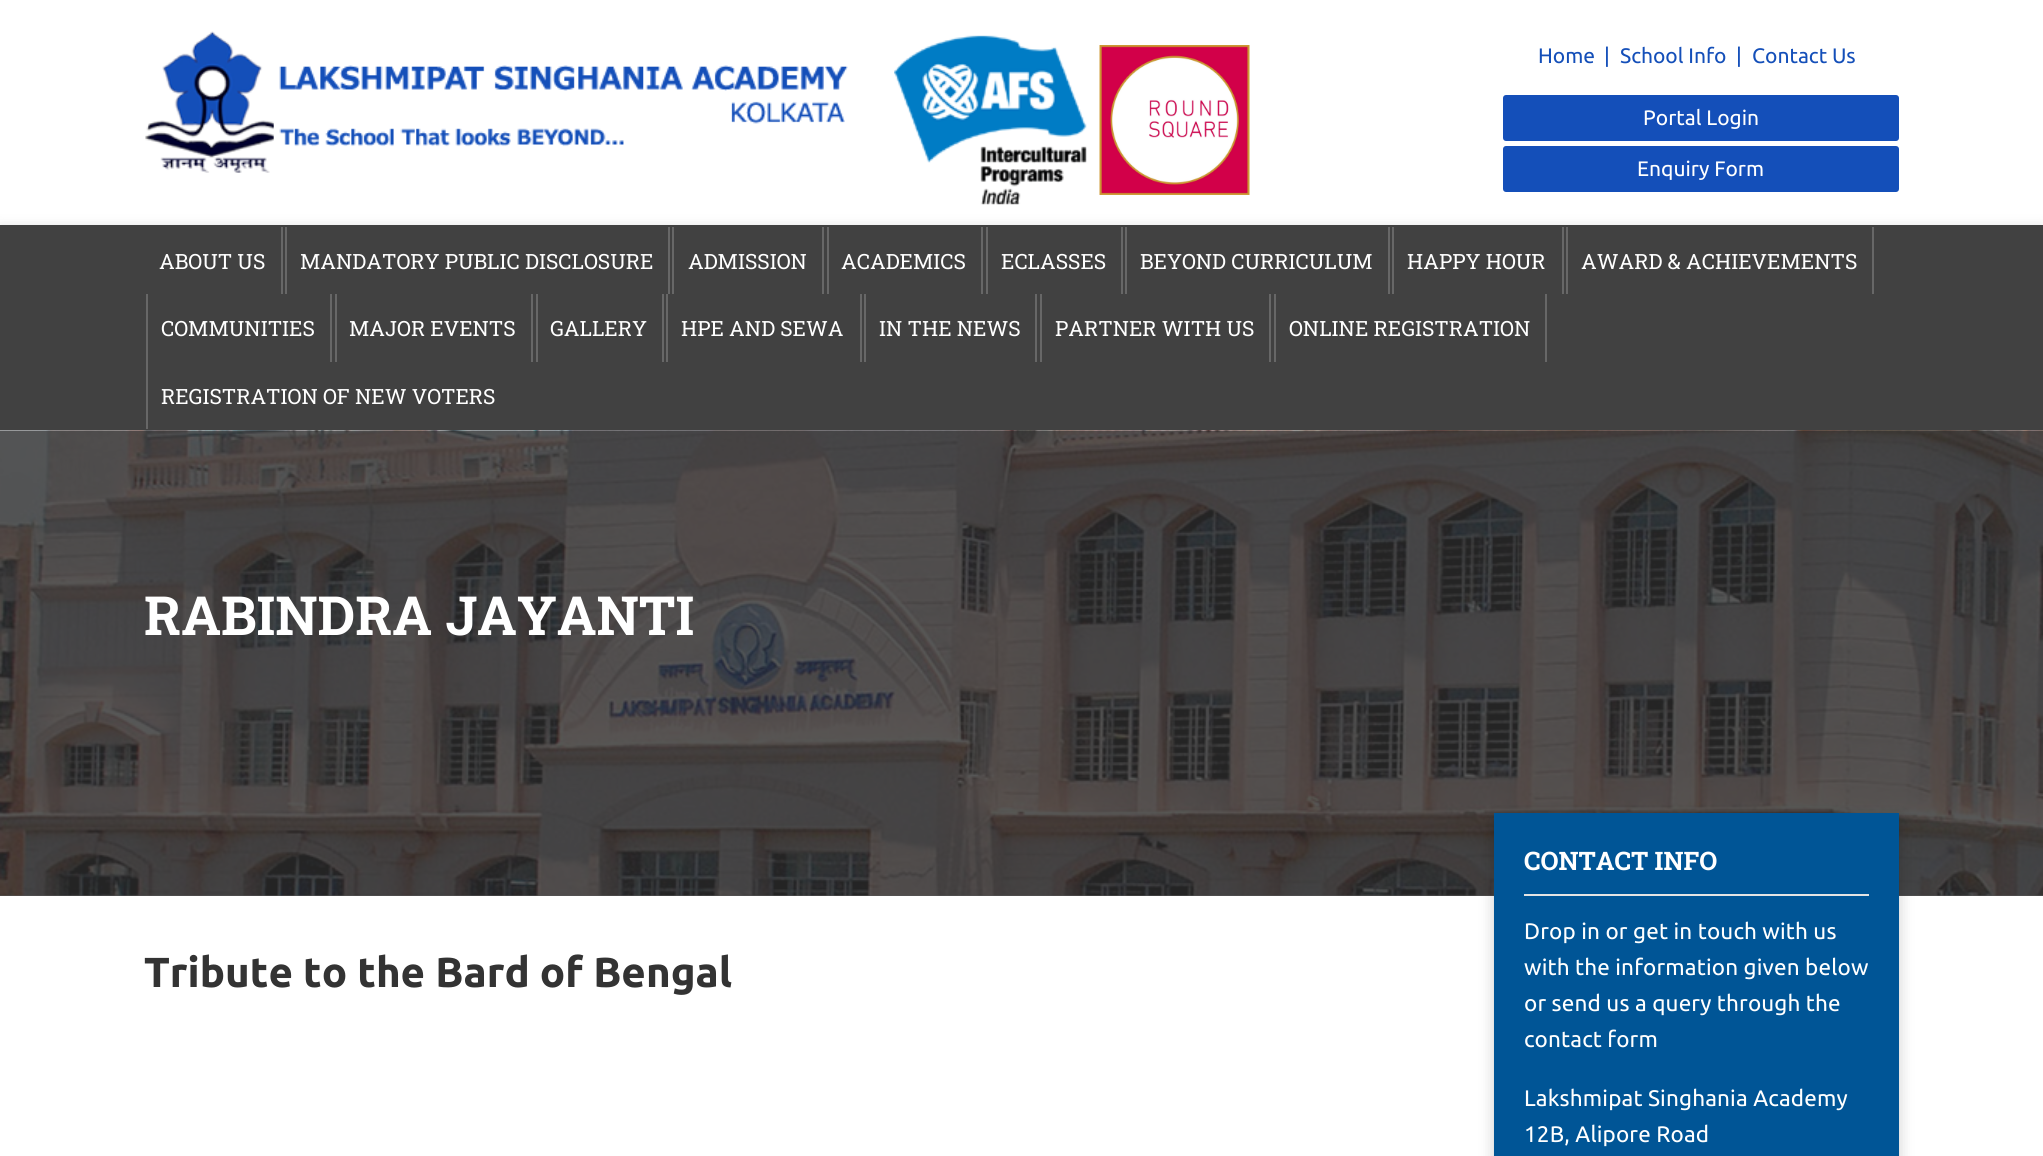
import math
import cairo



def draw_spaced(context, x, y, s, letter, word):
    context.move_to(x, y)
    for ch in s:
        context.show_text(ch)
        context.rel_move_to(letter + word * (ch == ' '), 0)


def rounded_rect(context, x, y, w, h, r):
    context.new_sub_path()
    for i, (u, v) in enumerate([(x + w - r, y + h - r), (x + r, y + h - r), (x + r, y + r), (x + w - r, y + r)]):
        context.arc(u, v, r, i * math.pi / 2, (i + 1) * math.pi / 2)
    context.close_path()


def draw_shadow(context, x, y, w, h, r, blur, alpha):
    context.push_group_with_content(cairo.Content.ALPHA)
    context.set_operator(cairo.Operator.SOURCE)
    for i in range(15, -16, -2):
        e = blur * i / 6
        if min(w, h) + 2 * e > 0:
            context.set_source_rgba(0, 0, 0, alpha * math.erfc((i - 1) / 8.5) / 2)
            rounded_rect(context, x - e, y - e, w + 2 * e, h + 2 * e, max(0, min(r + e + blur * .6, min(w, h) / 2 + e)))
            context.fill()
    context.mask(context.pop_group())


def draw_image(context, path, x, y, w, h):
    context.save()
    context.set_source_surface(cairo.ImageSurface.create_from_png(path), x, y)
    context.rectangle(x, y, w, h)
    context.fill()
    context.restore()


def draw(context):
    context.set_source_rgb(1, 1, 1)
    context.paint()
    draw_image(context, "images/1.png", 145, 31, 703, 142)
    draw_image(context, "images/2.png", 894, 35, 193, 170)
    draw_image(context, "images/3.png", 1099, 45, 151, 150)
    context.set_source_rgb(20 / 255, 79 / 255, 185 / 255)
    rounded_rect(context, 1503, 95, 396, 46, 3)
    context.fill()
    rounded_rect(context, 1503, 146, 396, 46, 3)
    context.fill()
    context.set_source_rgb(0, 0, 0)
    draw_shadow(context, 0, 230, 2043, 205, 0, 7.5, 0.2)
    context.set_source_rgb(65 / 255, 65 / 255, 65 / 255)
    context.rectangle(0, 225, 2043, 206)
    context.fill()
    context.set_source_rgb(103 / 255, 103 / 255, 103 / 255)
    context.rectangle(281, 227, 2, 67)
    context.fill()
    context.rectangle(668, 227, 2, 67)
    context.fill()
    context.rectangle(285, 227, 2, 67)
    context.fill()
    context.rectangle(822, 227, 2, 67)
    context.fill()
    context.rectangle(672, 227, 2, 67)
    context.fill()
    context.rectangle(981, 227, 2, 67)
    context.fill()
    context.rectangle(827, 227, 2, 67)
    context.fill()
    context.rectangle(1121, 227, 2, 67)
    context.fill()
    context.rectangle(986, 227, 2, 67)
    context.fill()
    context.rectangle(1388, 227, 2, 67)
    context.fill()
    context.rectangle(1125, 227, 2, 67)
    context.fill()
    context.rectangle(1562, 227, 2, 67)
    context.fill()
    context.rectangle(1392, 227, 2, 67)
    context.fill()
    context.rectangle(1872, 227, 2, 67)
    context.fill()
    context.rectangle(1566, 227, 2, 67)
    context.fill()
    context.rectangle(330, 294, 2, 68)
    context.fill()
    context.rectangle(146, 294, 2, 135)
    context.fill()
    context.rectangle(531, 294, 2, 68)
    context.fill()
    context.rectangle(335, 294, 2, 68)
    context.fill()
    context.rectangle(662, 294, 2, 68)
    context.fill()
    context.rectangle(536, 294, 2, 68)
    context.fill()
    context.rectangle(860, 294, 2, 68)
    context.fill()
    context.rectangle(666, 294, 2, 68)
    context.fill()
    context.rectangle(1035, 294, 2, 68)
    context.fill()
    context.rectangle(864, 294, 2, 68)
    context.fill()
    context.rectangle(1269, 294, 2, 68)
    context.fill()
    context.rectangle(1040, 294, 2, 68)
    context.fill()
    context.rectangle(1545, 294, 2, 68)
    context.fill()
    context.rectangle(1274, 294, 2, 68)
    context.fill()
    draw_image(context, "images/4.png", 0, 430, 2043, 466)
    context.set_source_rgba(45 / 255, 45 / 255, 45 / 255, 0.8)
    context.rectangle(0, 431, 2043, 465)
    context.fill()
    context.set_source_rgb(0, 0, 0)
    draw_shadow(context, 1494, 818, 405, 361, 0, 7.5, 0.2)
    context.set_source_rgb(0, 85 / 255, 150 / 255)
    context.rectangle(1494, 813, 405, 343)
    context.fill()
    context.set_source_rgb(228 / 255, 228 / 255, 228 / 255)
    context.rectangle(1524, 894, 345, 2)
    context.fill()
    context.select_font_face("Ubuntu")
    context.set_font_size(21)
    context.set_source_rgb(20 / 255, 79 / 255, 185 / 255)
    context.move_to(1538, 63)
    context.show_text("Home")
    context.move_to(1604, 63)
    context.show_text("|")
    context.move_to(1620, 63)
    context.show_text("School Info")
    context.move_to(1736, 63)
    context.show_text("|")
    context.move_to(1752, 63)
    context.show_text("Contact Us")
    context.set_source_rgb(1, 1, 1)
    context.move_to(1643, 125)
    context.show_text("Portal Login")
    context.move_to(1637, 176)
    context.show_text("Enquiry Form")
    context.select_font_face("Roboto Slab")
    context.move_to(159, 269)
    context.show_text("ABOUT US")
    context.move_to(300, 269)
    context.show_text("MANDATORY PUBLIC DISCLOSURE")
    context.move_to(688, 269)
    context.show_text("ADMISSION")
    context.move_to(841, 269)
    context.show_text("ACADEMICS")
    context.move_to(1001, 269)
    context.show_text("ECLASSES")
    context.move_to(1140, 269)
    context.show_text("BEYOND CURRICULUM")
    context.move_to(1407, 269)
    context.show_text("HAPPY HOUR")
    context.move_to(1581, 269)
    context.show_text("AWARD & ACHIEVEMENTS")
    context.move_to(161, 336)
    context.show_text("COMMUNITIES")
    context.move_to(349, 336)
    context.show_text("MAJOR EVENTS")
    context.move_to(550, 336)
    context.show_text("GALLERY")
    context.move_to(681, 336)
    context.show_text("HPE AND SEWA")
    context.move_to(879, 336)
    context.show_text("IN THE NEWS")
    context.move_to(1055, 336)
    context.show_text("PARTNER WITH US")
    context.move_to(1289, 336)
    context.show_text("ONLINE REGISTRATION")
    context.move_to(161, 404)
    context.show_text("REGISTRATION OF NEW VOTERS")
    context.select_font_face("Roboto Slab", cairo.FontSlant.NORMAL, cairo.FontWeight.BOLD)
    context.set_font_size(54)
    context.move_to(144, 635)
    context.show_text("RABINDRA JAYANTI")
    context.select_font_face("Ubuntu", cairo.FontSlant.NORMAL, cairo.FontWeight.BOLD)
    context.set_font_size(42)
    context.set_source_rgb(51 / 255, 51 / 255, 51 / 255)
    context.move_to(144, 987)
    context.show_text("Tribute to the Bard of Bengal")
    context.select_font_face("Roboto Slab", cairo.FontSlant.NORMAL, cairo.FontWeight.BOLD)
    context.set_font_size(25.5)
    context.set_source_rgb(1, 1, 1)
    context.move_to(1524, 870)
    context.show_text("CONTACT INFO")
    context.select_font_face("Ubuntu")
    context.set_font_size(22.5)
    draw_spaced(context, 1524, 939, "Drop in or get in touch with us", 0.15, 0)
    draw_spaced(context, 1524, 975, "with the information given below", 0.15, 0)
    draw_spaced(context, 1524, 1011, "or send us a query through the", 0.15, 0)
    draw_spaced(context, 1524, 1047, "contact form", 0.15, 0)
    draw_spaced(context, 1524, 1106, "Lakshmipat Singhania Academy", 0.15, 0)
    draw_spaced(context, 1524, 1142, "12B, Alipore Road", 0.15, 0)


surface = cairo.ImageSurface(cairo.Format.RGB24, 2043, 1156)
context = cairo.Context(surface)
options = cairo.FontOptions()
options.set_hint_metrics(cairo.HintMetrics.OFF)
options.set_hint_style(cairo.HintStyle.NONE)
context.set_font_options(options)
context.set_miter_limit(4)
draw(context)
surface.write_to_png("out.png")
